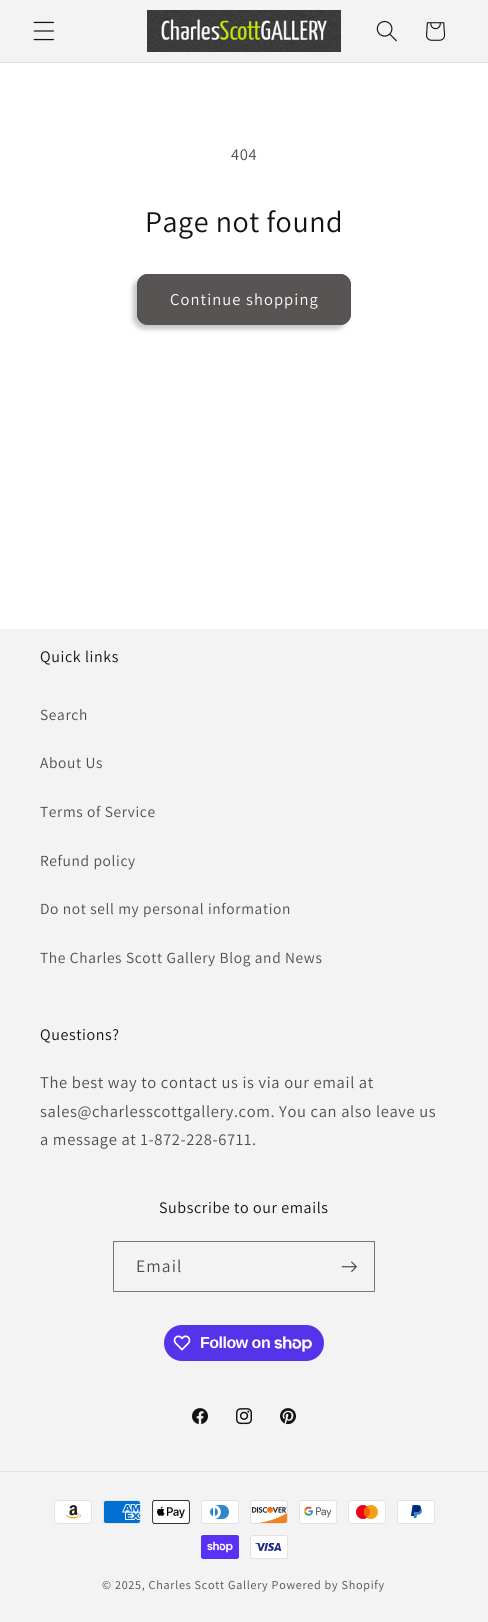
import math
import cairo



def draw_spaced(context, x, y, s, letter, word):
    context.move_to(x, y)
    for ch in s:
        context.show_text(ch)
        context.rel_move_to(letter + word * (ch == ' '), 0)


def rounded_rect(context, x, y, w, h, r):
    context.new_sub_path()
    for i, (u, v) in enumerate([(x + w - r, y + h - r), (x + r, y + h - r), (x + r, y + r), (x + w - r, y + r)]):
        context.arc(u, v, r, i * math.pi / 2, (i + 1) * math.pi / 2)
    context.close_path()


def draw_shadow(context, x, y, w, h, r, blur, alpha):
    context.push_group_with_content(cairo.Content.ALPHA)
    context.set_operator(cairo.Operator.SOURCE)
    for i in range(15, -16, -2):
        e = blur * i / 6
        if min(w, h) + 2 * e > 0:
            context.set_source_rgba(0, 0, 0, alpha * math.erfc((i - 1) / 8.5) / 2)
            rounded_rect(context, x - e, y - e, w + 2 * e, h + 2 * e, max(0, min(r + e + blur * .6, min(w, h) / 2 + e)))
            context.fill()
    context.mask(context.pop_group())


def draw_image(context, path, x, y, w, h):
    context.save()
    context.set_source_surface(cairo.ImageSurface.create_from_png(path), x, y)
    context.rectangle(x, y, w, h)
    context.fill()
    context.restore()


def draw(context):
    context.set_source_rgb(1, 1, 1)
    context.paint()
    context.set_source_rgb(243 / 255, 243 / 255, 243 / 255)
    context.rectangle(0, 0, 488, 62)
    context.fill()
    context.set_source_rgb(225 / 255, 225 / 255, 225 / 255)
    context.rectangle(0, 62, 488, 1)
    context.fill()
    draw_image(context, "images/1.png", 33, 21, 21, 20)
    draw_image(context, "images/2.png", 147, 10, 194, 42)
    draw_image(context, "images/3.png", 376, 20, 21, 22)
    draw_image(context, "images/4.png", 426, 22, 20, 19)
    context.set_source_rgb(18 / 255, 18 / 255, 18 / 255)
    draw_shadow(context, 133, 278, 214, 51, 11, 2.5, 0.25)
    context.set_source_rgb(88 / 255, 84 / 255, 84 / 255)
    rounded_rect(context, 137, 274, 214, 51, 11)
    context.fill()
    rounded_rect(context, 137.5, 274.5, 213, 50, 10.5)
    context.set_line_width(1)
    context.stroke()
    context.set_source_rgb(243 / 255, 243 / 255, 243 / 255)
    context.rectangle(0, 629, 488, 993)
    context.fill()
    context.rectangle(113.5, 1241.5, 261, 50)
    context.set_source_rgb(119 / 255, 119 / 255, 119 / 255)
    context.stroke()
    draw_image(context, "images/5.png", 341, 1261, 16, 11)
    context.set_source_rgb(84 / 255, 51 / 255, 235 / 255)
    rounded_rect(context, 164, 1325, 160, 36, 18)
    context.fill()
    draw_image(context, "images/6.png", 173, 1335, 18, 16)
    draw_image(context, "images/7.png", 274, 1336, 38, 16)
    draw_image(context, "images/8.png", 192, 1408, 16, 16)
    draw_image(context, "images/9.png", 236, 1408, 16, 17)
    draw_image(context, "images/10.png", 280, 1408, 16, 17)
    context.set_source_rgb(225 / 255, 225 / 255, 225 / 255)
    context.rectangle(0, 1471, 488, 1)
    context.fill()
    draw_image(context, "images/11.png", 54, 1500, 38, 24)
    draw_image(context, "images/12.png", 103, 1500, 38, 24)
    draw_image(context, "images/13.png", 152, 1500, 38, 24)
    draw_image(context, "images/14.png", 201, 1500, 38, 24)
    draw_image(context, "images/15.png", 250, 1500, 38, 24)
    draw_image(context, "images/16.png", 299, 1500, 38, 24)
    draw_image(context, "images/17.png", 348, 1500, 38, 24)
    draw_image(context, "images/18.png", 397, 1500, 38, 24)
    draw_image(context, "images/19.png", 201, 1535, 38, 24)
    draw_image(context, "images/20.png", 250, 1535, 38, 24)
    context.select_font_face("Assistant")
    context.set_font_size(16.5)
    context.set_source_rgb(77 / 255, 77 / 255, 77 / 255)
    draw_spaced(context, 231, 160, "404", 0.65, 0)
    context.set_font_size(30)
    context.set_source_rgb(18 / 255, 18 / 255, 18 / 255)
    draw_spaced(context, 145, 232, "Page not found", 0.6, 0)
    context.set_font_size(16.5)
    context.set_source_rgb(1, 1, 1)
    draw_spaced(context, 170, 305, "Continue shopping", 1.1, 0)
    context.set_font_size(16)
    context.set_source_rgb(18 / 255, 18 / 255, 18 / 255)
    draw_spaced(context, 40, 662, "Quick links", 0.6, 0)
    context.set_font_size(15.4)
    context.set_source_rgb(77 / 255, 77 / 255, 77 / 255)
    draw_spaced(context, 40, 720, "Search", 0.65, 0)
    draw_spaced(context, 40, 768, "About Us", 0.65, 0)
    draw_spaced(context, 40, 817, "Terms of Service", 0.65, 0)
    draw_spaced(context, 40, 866, "Refund policy", 0.65, 0)
    draw_spaced(context, 40, 914, "Do not sell my personal information", 0.65, 0)
    draw_spaced(context, 40, 963, "The Charles Scott Gallery Blog and News", 0.65, 0)
    context.set_font_size(16)
    context.set_source_rgb(18 / 255, 18 / 255, 18 / 255)
    draw_spaced(context, 40, 1040, "Questions?", 0.6, 0)
    context.set_font_size(16.5)
    context.set_source_rgb(77 / 255, 77 / 255, 77 / 255)
    draw_spaced(context, 40, 1088, "The best way to contact us is via our email at", 0.65, 0)
    draw_spaced(context, 40, 1117, "sales@charlesscottgallery.com. You can also leave us", 0.65, 0)
    draw_spaced(context, 40, 1145, "a message at 1-872-228-6711.", 0.65, 0)
    context.set_font_size(16)
    context.set_source_rgb(18 / 255, 18 / 255, 18 / 255)
    draw_spaced(context, 159, 1213, "Subscribe to our emails", 0.6, 0)
    context.set_font_size(17.5)
    context.set_source_rgb(77 / 255, 77 / 255, 77 / 255)
    draw_spaced(context, 136, 1272, "Email", 1.1, 0)
    context.select_font_face("Liberation Sans", cairo.FontSlant.NORMAL, cairo.FontWeight.BOLD)
    context.set_font_size(16)
    context.set_source_rgb(1, 1, 1)
    draw_spaced(context, 200, 1348, "Follow on", -0.5, 0)
    context.select_font_face("Assistant")
    context.set_font_size(12.1)
    context.set_source_rgb(77 / 255, 77 / 255, 77 / 255)
    draw_spaced(context, 102, 1589, "© 2025, Charles Scott Gallery Powered by Shopify", 0.75, 0)


surface = cairo.ImageSurface(cairo.Format.RGB24, 488, 1622)
context = cairo.Context(surface)
options = cairo.FontOptions()
options.set_hint_metrics(cairo.HintMetrics.OFF)
options.set_hint_style(cairo.HintStyle.NONE)
context.set_font_options(options)
context.set_miter_limit(4)
draw(context)
surface.write_to_png("out.png")
